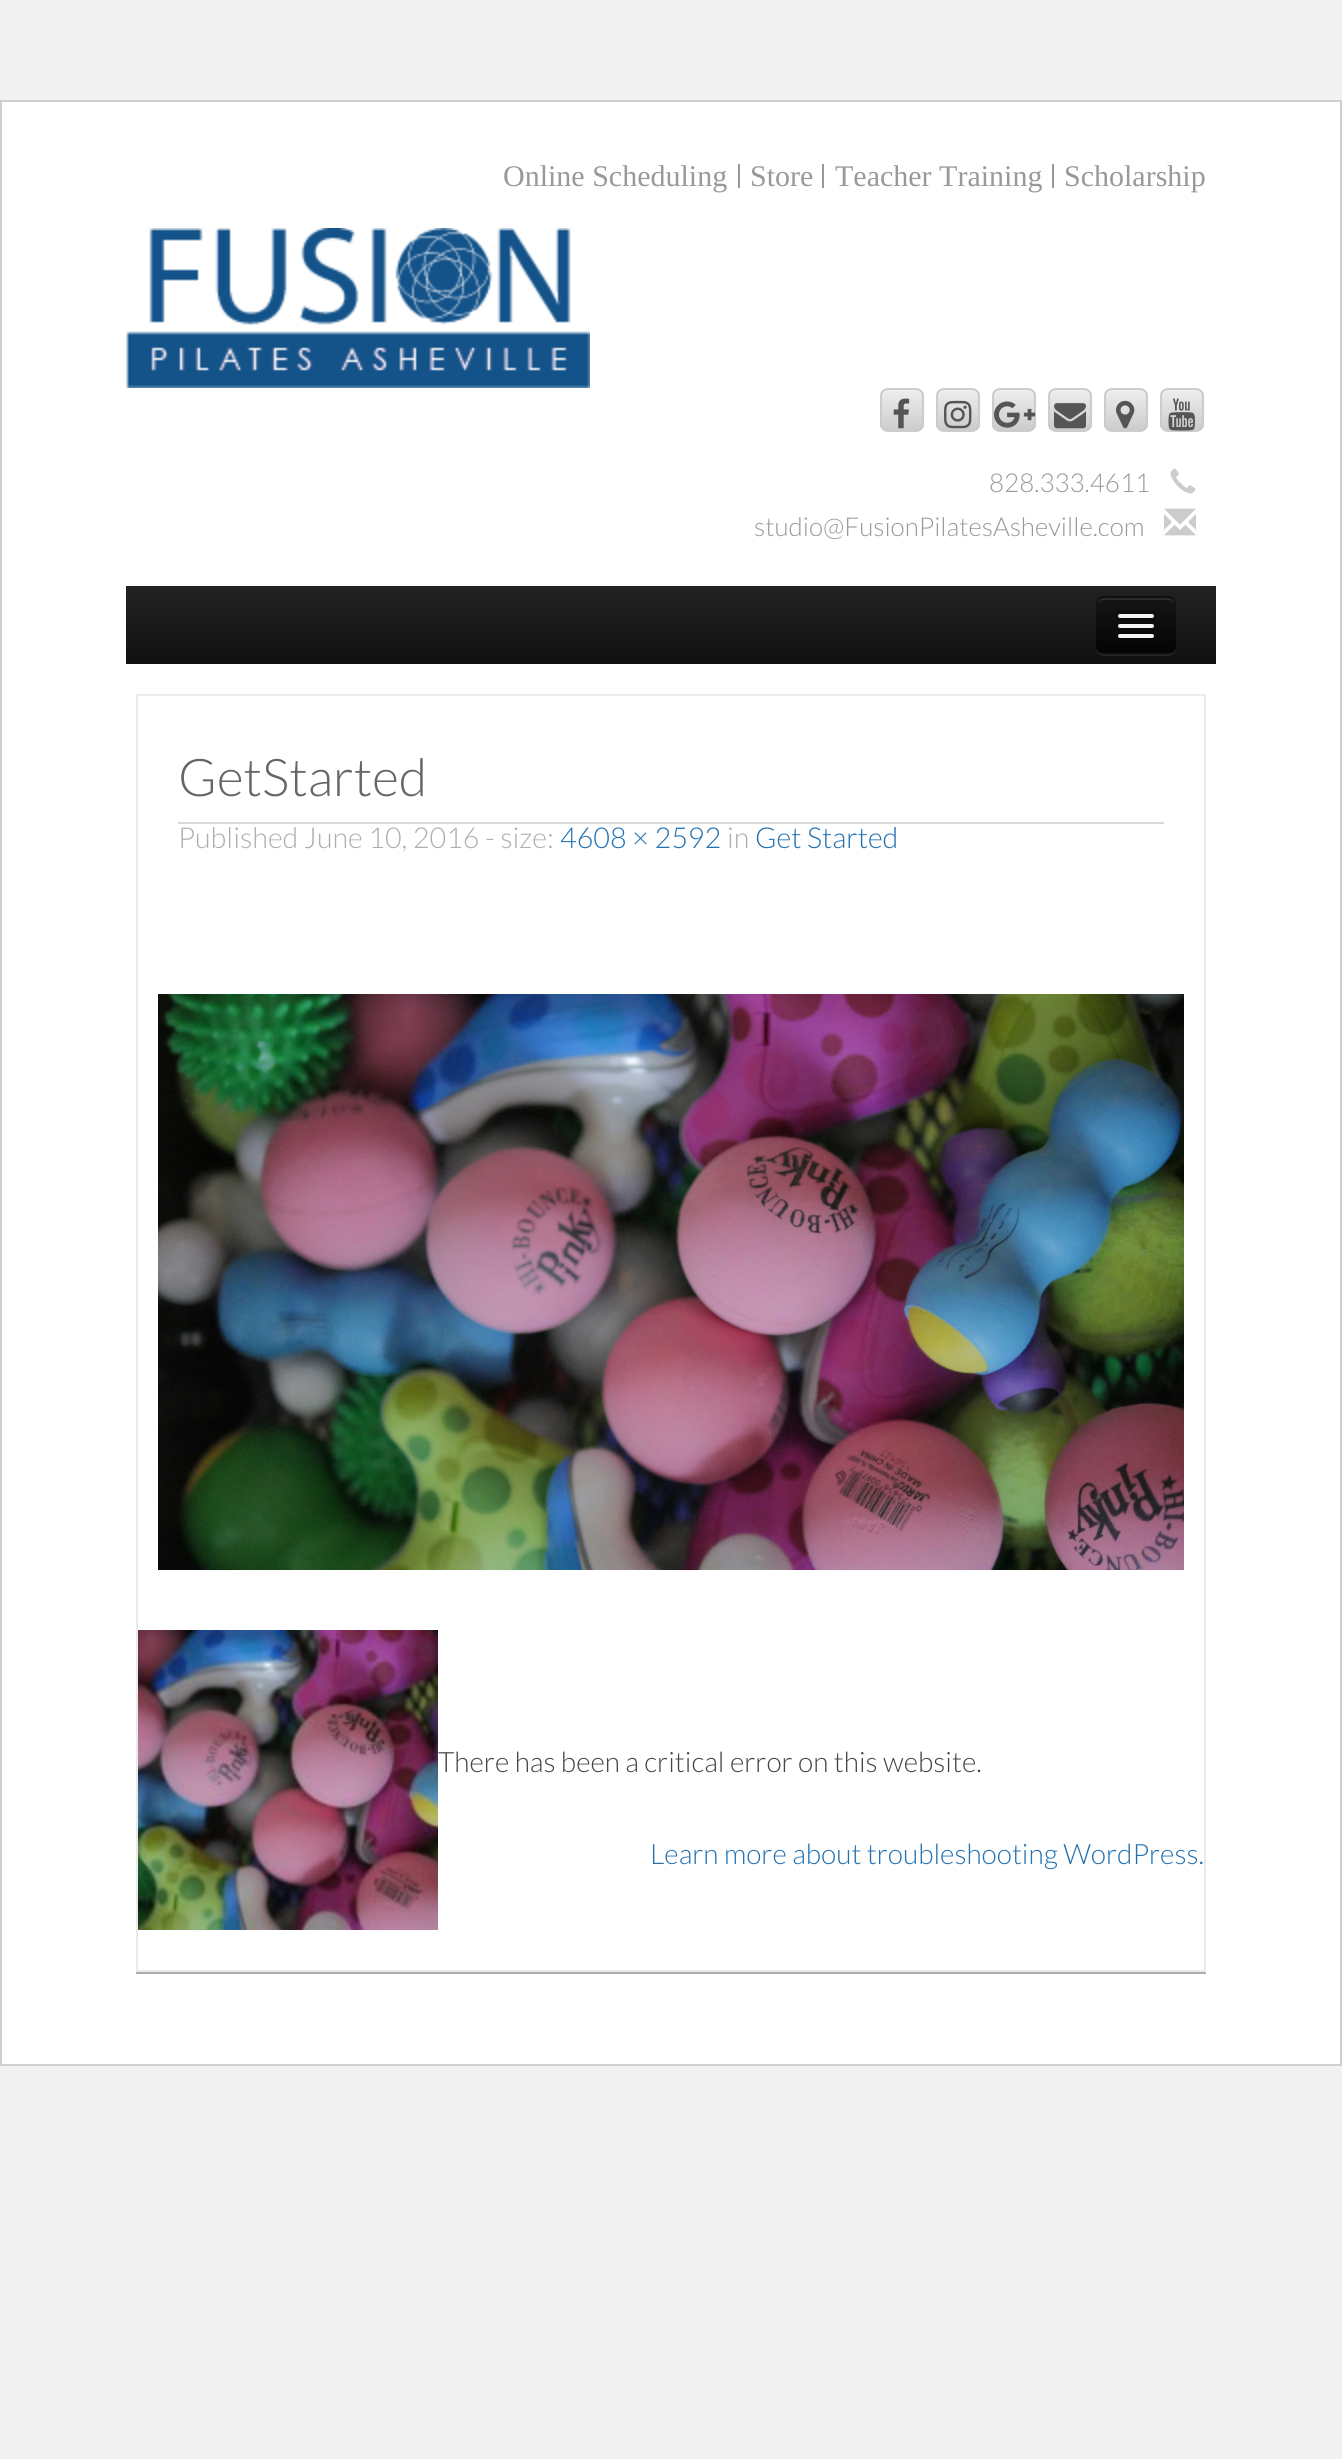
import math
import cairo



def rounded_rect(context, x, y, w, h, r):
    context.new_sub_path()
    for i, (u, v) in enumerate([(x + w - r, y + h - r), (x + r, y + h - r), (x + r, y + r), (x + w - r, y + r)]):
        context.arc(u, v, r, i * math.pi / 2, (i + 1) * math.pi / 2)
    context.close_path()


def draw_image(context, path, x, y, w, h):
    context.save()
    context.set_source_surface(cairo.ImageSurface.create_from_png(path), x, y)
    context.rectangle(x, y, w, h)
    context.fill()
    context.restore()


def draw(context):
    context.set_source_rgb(241 / 255, 241 / 255, 241 / 255)
    context.paint()
    context.set_source_rgb(1, 1, 1)
    context.rectangle(1, 101, 1340, 1964)
    context.fill_preserve()
    context.set_source_rgb(204 / 255, 208 / 255, 212 / 255)
    context.stroke()
    context.set_source_rgb(153 / 255, 153 / 255, 153 / 255)
    context.rectangle(738, 164, 2, 24)
    context.fill()
    context.rectangle(822, 164, 2, 24)
    context.fill()
    context.rectangle(1052, 164, 2, 24)
    context.fill()
    draw_image(context, "images/1.png", 126, 228, 464, 160)
    context.save()
    rounded_rect(context, 880, 388, 44, 44, 8)
    context.clip()
    gradient = cairo.LinearGradient(902, 390, 902, 430)
    gradient.add_color_stop_rgba(0, 238 / 255, 238 / 255, 238 / 255, 1)
    gradient.add_color_stop_rgba(1, 204 / 255, 204 / 255, 204 / 255, 1)
    context.set_source(gradient)
    context.rectangle(880, 390, 44, 40)
    context.fill()
    context.restore()
    rounded_rect(context, 881, 389, 42, 42, 7)
    context.set_source_rgb(204 / 255, 204 / 255, 204 / 255)
    context.stroke()
    draw_image(context, "images/2.png", 893, 398, 17, 31)
    context.save()
    rounded_rect(context, 936, 388, 44, 44, 8)
    context.clip()
    gradient = cairo.LinearGradient(958, 390, 958, 430)
    gradient.add_color_stop_rgba(0, 238 / 255, 238 / 255, 238 / 255, 1)
    gradient.add_color_stop_rgba(1, 204 / 255, 204 / 255, 204 / 255, 1)
    context.set_source(gradient)
    context.rectangle(936, 390, 44, 40)
    context.fill()
    context.restore()
    rounded_rect(context, 937, 389, 42, 42, 7)
    context.stroke()
    draw_image(context, "images/3.png", 944, 400, 28, 29)
    context.save()
    rounded_rect(context, 992, 388, 44, 44, 8)
    context.clip()
    gradient = cairo.LinearGradient(1014, 390, 1014, 430)
    gradient.add_color_stop_rgba(0, 238 / 255, 238 / 255, 238 / 255, 1)
    gradient.add_color_stop_rgba(1, 204 / 255, 204 / 255, 204 / 255, 1)
    context.set_source(gradient)
    context.rectangle(992, 390, 44, 40)
    context.fill()
    context.restore()
    rounded_rect(context, 993, 389, 42, 42, 7)
    context.stroke()
    draw_image(context, "images/4.png", 994, 401, 42, 27)
    context.save()
    rounded_rect(context, 1048, 388, 44, 44, 8)
    context.clip()
    gradient = cairo.LinearGradient(1070, 390, 1070, 430)
    gradient.add_color_stop_rgba(0, 238 / 255, 238 / 255, 238 / 255, 1)
    gradient.add_color_stop_rgba(1, 204 / 255, 204 / 255, 204 / 255, 1)
    context.set_source(gradient)
    context.rectangle(1048, 390, 44, 40)
    context.fill()
    context.restore()
    rounded_rect(context, 1049, 389, 42, 42, 7)
    context.stroke()
    draw_image(context, "images/5.png", 1054, 403, 32, 26)
    context.save()
    rounded_rect(context, 1104, 388, 44, 44, 8)
    context.clip()
    gradient = cairo.LinearGradient(1126, 390, 1126, 430)
    gradient.add_color_stop_rgba(0, 238 / 255, 238 / 255, 238 / 255, 1)
    gradient.add_color_stop_rgba(1, 204 / 255, 204 / 255, 204 / 255, 1)
    context.set_source(gradient)
    context.rectangle(1104, 390, 44, 40)
    context.fill()
    context.restore()
    rounded_rect(context, 1105, 389, 42, 42, 7)
    context.stroke()
    draw_image(context, "images/6.png", 1116, 400, 19, 29)
    context.save()
    rounded_rect(context, 1160, 388, 44, 44, 8)
    context.clip()
    gradient = cairo.LinearGradient(1182, 390, 1182, 430)
    gradient.add_color_stop_rgba(0, 238 / 255, 238 / 255, 238 / 255, 1)
    gradient.add_color_stop_rgba(1, 204 / 255, 204 / 255, 204 / 255, 1)
    context.set_source(gradient)
    context.rectangle(1160, 390, 44, 40)
    context.fill()
    context.restore()
    rounded_rect(context, 1161, 389, 42, 42, 7)
    context.stroke()
    draw_image(context, "images/7.png", 1168, 398, 27, 33)
    draw_image(context, "images/8.png", 1170, 468, 26, 26)
    draw_image(context, "images/9.png", 1164, 508, 32, 28)
    gradient = cairo.LinearGradient(671, 586, 671, 664)
    gradient.add_color_stop_rgba(0, 34 / 255, 34 / 255, 34 / 255, 1)
    gradient.add_color_stop_rgba(1, 17 / 255, 17 / 255, 17 / 255, 1)
    context.set_source(gradient)
    context.rectangle(126, 586, 1090, 78)
    context.fill()
    context.set_source_rgb(37 / 255, 37 / 255, 37 / 255)
    context.new_path()
    context.move_to(1096, 646)
    context.curve_to(1096, 658, 1105, 656, 1115, 656)
    context.line_to(1157, 656)
    context.curve_to(1167, 656, 1176, 658, 1176, 646)
    context.curve_to(1176, 650, 1172, 654, 1168, 654)
    context.line_to(1104, 654)
    context.curve_to(1100, 654, 1096, 650, 1096, 646)
    context.close_path()
    context.fill()
    context.set_source_rgb(14 / 255, 14 / 255, 14 / 255)
    rounded_rect(context, 1096, 596, 80, 58, 8)
    context.fill()
    context.save()
    rounded_rect(context, 1096, 596, 80, 58, 8)
    context.clip()
    gradient = cairo.LinearGradient(1136, 598, 1136, 652)
    gradient.add_color_stop_rgba(0, 21 / 255, 21 / 255, 21 / 255, 1)
    gradient.add_color_stop_rgba(1, 4 / 255, 4 / 255, 4 / 255, 1)
    context.set_source(gradient)
    context.rectangle(1096, 598, 80, 54)
    context.fill()
    context.restore()
    context.set_source_rgb(44 / 255, 44 / 255, 44 / 255)
    context.new_path()
    context.move_to(1104, 600)
    context.line_to(1168, 600)
    context.curve_to(1171, 600, 1174, 603, 1174, 606)
    context.curve_to(1174, 596, 1166, 598, 1157, 598)
    context.line_to(1115, 598)
    context.curve_to(1106, 598, 1098, 596, 1098, 606)
    context.curve_to(1098, 603, 1101, 600, 1104, 600)
    context.close_path()
    context.fill()
    context.new_path()
    context.move_to(1173, 651)
    context.curve_to(1171.5, 652.5, 1170, 653, 1168, 653)
    context.line_to(1104, 653)
    context.curve_to(1102, 653, 1100.5, 652.5, 1099, 651)
    context.set_source_rgba(0, 0, 0, 0.25)
    context.stroke()
    context.set_source_rgb(11 / 255, 11 / 255, 11 / 255)
    context.new_path()
    context.move_to(1118.5, 617)
    context.curve_to(1116, 621, 1125, 620, 1125.5, 620)
    context.line_to(1146.5, 620)
    context.curve_to(1147, 620, 1156, 621, 1153.5, 617)
    context.curve_to(1153.5, 617.5, 1152.5, 618, 1152, 618)
    context.line_to(1120, 618)
    context.curve_to(1119.5, 618, 1118.5, 617.5, 1118.5, 617)
    context.close_path()
    context.fill()
    context.set_source_rgb(245 / 255, 245 / 255, 245 / 255)
    rounded_rect(context, 1118, 614, 36, 4, 2)
    context.fill()
    context.set_source_rgb(8 / 255, 8 / 255, 8 / 255)
    context.new_path()
    context.move_to(1118.5, 627)
    context.curve_to(1116, 631, 1125, 630, 1125.5, 630)
    context.line_to(1146.5, 630)
    context.curve_to(1147, 630, 1156, 631, 1153.5, 627)
    context.curve_to(1153.5, 627.5, 1152.5, 628, 1152, 628)
    context.line_to(1120, 628)
    context.curve_to(1119.5, 628, 1118.5, 627.5, 1118.5, 627)
    context.close_path()
    context.fill()
    context.set_source_rgb(245 / 255, 245 / 255, 245 / 255)
    rounded_rect(context, 1118, 624, 36, 4, 2)
    context.fill()
    rounded_rect(context, 1118, 634, 36, 4, 2)
    context.fill()
    context.set_source_rgb(173 / 255, 173 / 255, 173 / 255)
    context.rectangle(136, 1972, 1070, 2)
    context.fill()
    context.rectangle(137, 695, 1068, 1276)
    context.set_source_rgb(234 / 255, 234 / 255, 234 / 255)
    context.stroke()
    context.set_source_rgb(218 / 255, 218 / 255, 218 / 255)
    context.rectangle(178, 822, 986, 2)
    context.fill()
    draw_image(context, "images/10.png", 158, 994, 1026, 576)
    draw_image(context, "images/11.png", 138, 1630, 300, 300)
    context.select_font_face("Liberation Serif")
    context.set_font_size(30)
    context.set_source_rgb(153 / 255, 153 / 255, 153 / 255)
    context.move_to(503, 186)
    context.show_text("Online Scheduling")
    context.move_to(750, 186)
    context.show_text("Store")
    context.move_to(835, 186)
    context.show_text("Teacher Training")
    context.move_to(1064, 186)
    context.show_text("Scholarship")
    context.select_font_face("Lato Light")
    context.set_font_size(26)
    context.move_to(989, 492)
    context.show_text("828.333.4611")
    context.move_to(754, 536)
    context.show_text("studio@FusionPilatesAsheville.com")
    context.set_font_size(52)
    context.set_source_rgb(102 / 255, 102 / 255, 102 / 255)
    context.move_to(178, 796)
    context.show_text("GetStarted")
    context.set_font_size(28.75)
    context.set_source_rgb(175 / 255, 174 / 255, 174 / 255)
    context.move_to(178, 848)
    context.show_text("Published June 10, 2016 - size:")
    context.set_source_rgb(34 / 255, 113 / 255, 177 / 255)
    context.move_to(560, 848)
    context.show_text("4608 × 2592")
    context.set_source_rgb(175 / 255, 174 / 255, 174 / 255)
    context.move_to(727, 848)
    context.show_text("in")
    context.set_source_rgb(34 / 255, 113 / 255, 177 / 255)
    context.move_to(755, 848)
    context.show_text("Get Started")
    context.set_font_size(28)
    context.set_source_rgb(68 / 255, 68 / 255, 68 / 255)
    context.move_to(438, 1772)
    context.show_text("There has been a critical error on this website.")
    context.set_source_rgb(34 / 255, 113 / 255, 177 / 255)
    context.move_to(650, 1864)
    context.show_text("Learn more about troubleshooting WordPress.")


surface = cairo.ImageSurface(cairo.Format.RGB24, 1342, 2459)
context = cairo.Context(surface)
options = cairo.FontOptions()
options.set_hint_metrics(cairo.HintMetrics.OFF)
options.set_hint_style(cairo.HintStyle.NONE)
context.set_font_options(options)
context.set_miter_limit(4)
draw(context)
surface.write_to_png("out.png")
